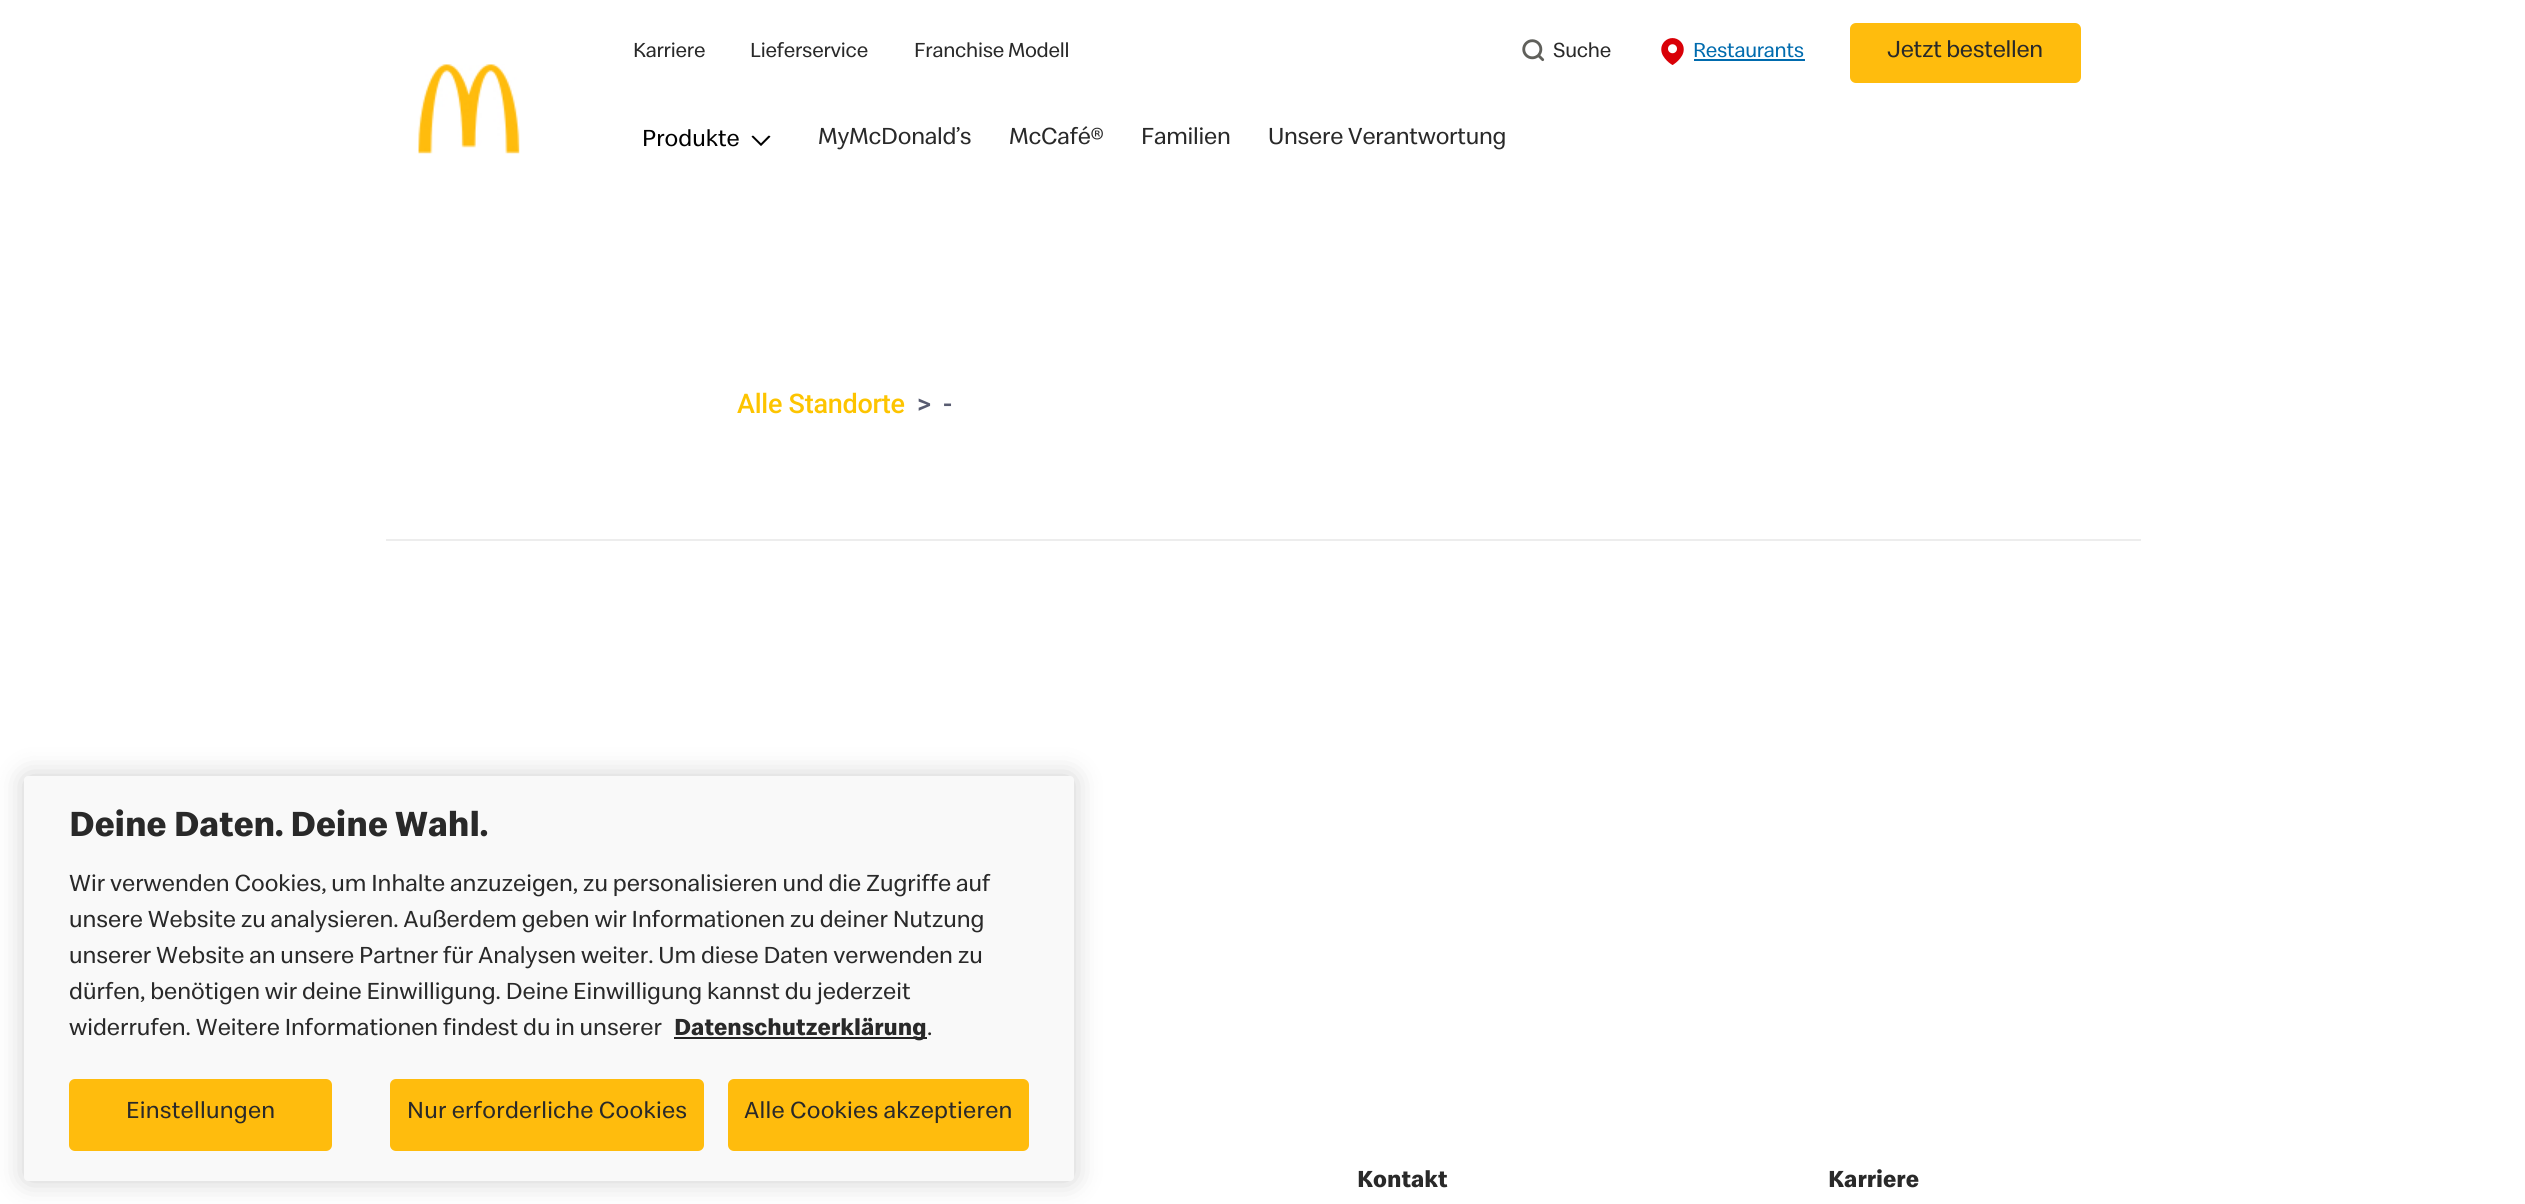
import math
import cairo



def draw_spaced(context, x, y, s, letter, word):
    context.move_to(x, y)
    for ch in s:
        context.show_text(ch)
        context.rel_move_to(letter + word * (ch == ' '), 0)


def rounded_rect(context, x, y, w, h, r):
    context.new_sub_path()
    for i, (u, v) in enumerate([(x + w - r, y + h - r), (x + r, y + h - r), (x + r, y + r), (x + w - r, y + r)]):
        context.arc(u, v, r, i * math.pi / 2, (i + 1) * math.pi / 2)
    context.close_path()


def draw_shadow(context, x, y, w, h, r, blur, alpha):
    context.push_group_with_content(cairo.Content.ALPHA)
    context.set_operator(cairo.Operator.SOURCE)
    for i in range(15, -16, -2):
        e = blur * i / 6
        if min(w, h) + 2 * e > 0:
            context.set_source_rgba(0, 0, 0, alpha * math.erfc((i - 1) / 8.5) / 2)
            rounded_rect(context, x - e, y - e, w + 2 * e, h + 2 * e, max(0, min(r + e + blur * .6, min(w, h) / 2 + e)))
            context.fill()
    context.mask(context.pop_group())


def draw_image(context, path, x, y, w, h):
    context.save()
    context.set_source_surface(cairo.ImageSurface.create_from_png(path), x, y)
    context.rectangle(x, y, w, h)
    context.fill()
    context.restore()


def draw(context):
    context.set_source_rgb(1, 1, 1)
    context.paint()
    context.set_source_rgb(0, 0, 0)
    draw_shadow(context, 24, 776, 1050, 405, 4, 13.5, 0.2)
    context.set_source_rgb(249 / 255, 249 / 255, 249 / 255)
    rounded_rect(context, 24, 776, 1050, 405, 4)
    context.fill()
    context.set_source_rgb(36 / 255, 36 / 255, 36 / 255)
    context.rectangle(674, 1037, 253, 2)
    context.fill()
    context.set_source_rgb(1, 188 / 255, 13 / 255)
    rounded_rect(context, 70, 1080, 261, 70, 5)
    context.fill_preserve()
    context.stroke()
    rounded_rect(context, 391, 1080, 312, 70, 5)
    context.fill_preserve()
    context.stroke()
    rounded_rect(context, 729, 1080, 299, 70, 5)
    context.fill_preserve()
    context.stroke()
    draw_image(context, "images/1.png", 1522, 39, 23, 23)
    draw_image(context, "images/2.png", 1661, 38, 23, 27)
    context.set_source_rgb(0, 107 / 255, 174 / 255)
    context.rectangle(1694, 59, 111, 2)
    context.fill()
    context.set_source_rgb(1, 188 / 255, 13 / 255)
    rounded_rect(context, 1850, 23, 231, 60, 6)
    context.fill()
    draw_image(context, "images/3.png", 418, 64, 102, 90)
    draw_image(context, "images/4.png", 751, 135, 20, 11)
    context.set_source_rgb(237 / 255, 237 / 255, 237 / 255)
    context.rectangle(386, 539, 1755, 2)
    context.fill()
    context.select_font_face("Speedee", cairo.FontSlant.NORMAL, cairo.FontWeight.BOLD)
    context.set_font_size(36)
    context.set_source_rgb(41 / 255, 41 / 255, 41 / 255)
    context.move_to(69, 836)
    context.show_text("Deine Daten. Deine Wahl.")
    context.select_font_face("Speedee")
    context.set_font_size(24)
    context.move_to(69, 891)
    context.show_text("Wir verwenden Cookies, um Inhalte anzuzeigen, zu personalisieren und die Zugriffe auf")
    context.move_to(69, 927)
    context.show_text("unsere Website zu analysieren. Außerdem geben wir Informationen zu deiner Nutzung")
    context.move_to(69, 963)
    context.show_text("unserer Website an unsere Partner für Analysen weiter. Um diese Daten verwenden zu")
    context.move_to(69, 999)
    context.show_text("dürfen, benötigen wir deine Einwilligung. Deine Einwilligung kannst du jederzeit")
    context.move_to(69, 1035)
    context.show_text("widerrufen. Weitere Informationen findest du in unserer")
    context.select_font_face("Speedee", cairo.FontSlant.NORMAL, cairo.FontWeight.BOLD)
    context.move_to(674, 1035)
    context.show_text("Datenschutzerklärung")
    context.select_font_face("Speedee")
    context.move_to(927, 1035)
    context.show_text(".")
    draw_spaced(context, 126, 1118, "Einstellungen", 0.25, 0)
    draw_spaced(context, 407, 1118, "Nur erforderliche Cookies", 0.25, 0)
    draw_spaced(context, 744, 1118, "Alle Cookies akzeptieren", 0.25, 0)
    context.set_font_size(21)
    draw_spaced(context, 633, 57, "Karriere", -0.25, 0)
    draw_spaced(context, 750, 57, "Lieferservice", -0.25, 0)
    draw_spaced(context, 914, 57, "Franchise Modell", -0.25, 0)
    draw_spaced(context, 1553, 57, "Suche", -0.25, 0)
    context.set_source_rgb(0, 107 / 255, 174 / 255)
    draw_spaced(context, 1693, 57, "Restaurants", -0.25, 0)
    context.set_font_size(24)
    context.set_source_rgb(41 / 255, 41 / 255, 41 / 255)
    draw_spaced(context, 1887, 57, "Jetzt bestellen", -0.25, 0)
    context.set_source_rgb(0, 0, 0)
    context.move_to(642, 146)
    context.show_text("Produkte")
    context.set_source_rgb(41 / 255, 41 / 255, 41 / 255)
    draw_spaced(context, 818, 144, "MyMcDonald’s", -0.25, 0)
    draw_spaced(context, 1009, 144, "McCafé®", -0.25, 0)
    draw_spaced(context, 1141, 144, "Familien", -0.25, 0)
    draw_spaced(context, 1268, 144, "Unsere Verantwortung", -0.25, 0)
    context.select_font_face("Roboto Medium")
    context.set_font_size(27)
    context.set_source_rgb(253 / 255, 196 / 255, 0)
    draw_spaced(context, 737, 413, "Alle Standorte", -0.25, 0)
    context.set_source_rgb(88 / 255, 92 / 255, 113 / 255)
    draw_spaced(context, 917, 413, ">", -0.25, 0)
    draw_spaced(context, 943, 413, "-", -0.25, 0)
    context.select_font_face("Speedee", cairo.FontSlant.NORMAL, cairo.FontWeight.BOLD)
    context.set_font_size(24)
    context.set_source_rgb(41 / 255, 41 / 255, 41 / 255)
    context.move_to(1357, 1187)
    context.show_text("Kontakt")
    context.move_to(1828, 1187)
    context.show_text("Karriere")


surface = cairo.ImageSurface(cairo.Format.RGB24, 2525, 1204)
context = cairo.Context(surface)
options = cairo.FontOptions()
options.set_hint_metrics(cairo.HintMetrics.OFF)
options.set_hint_style(cairo.HintStyle.NONE)
context.set_font_options(options)
context.set_miter_limit(4)
draw(context)
surface.write_to_png("out.png")
